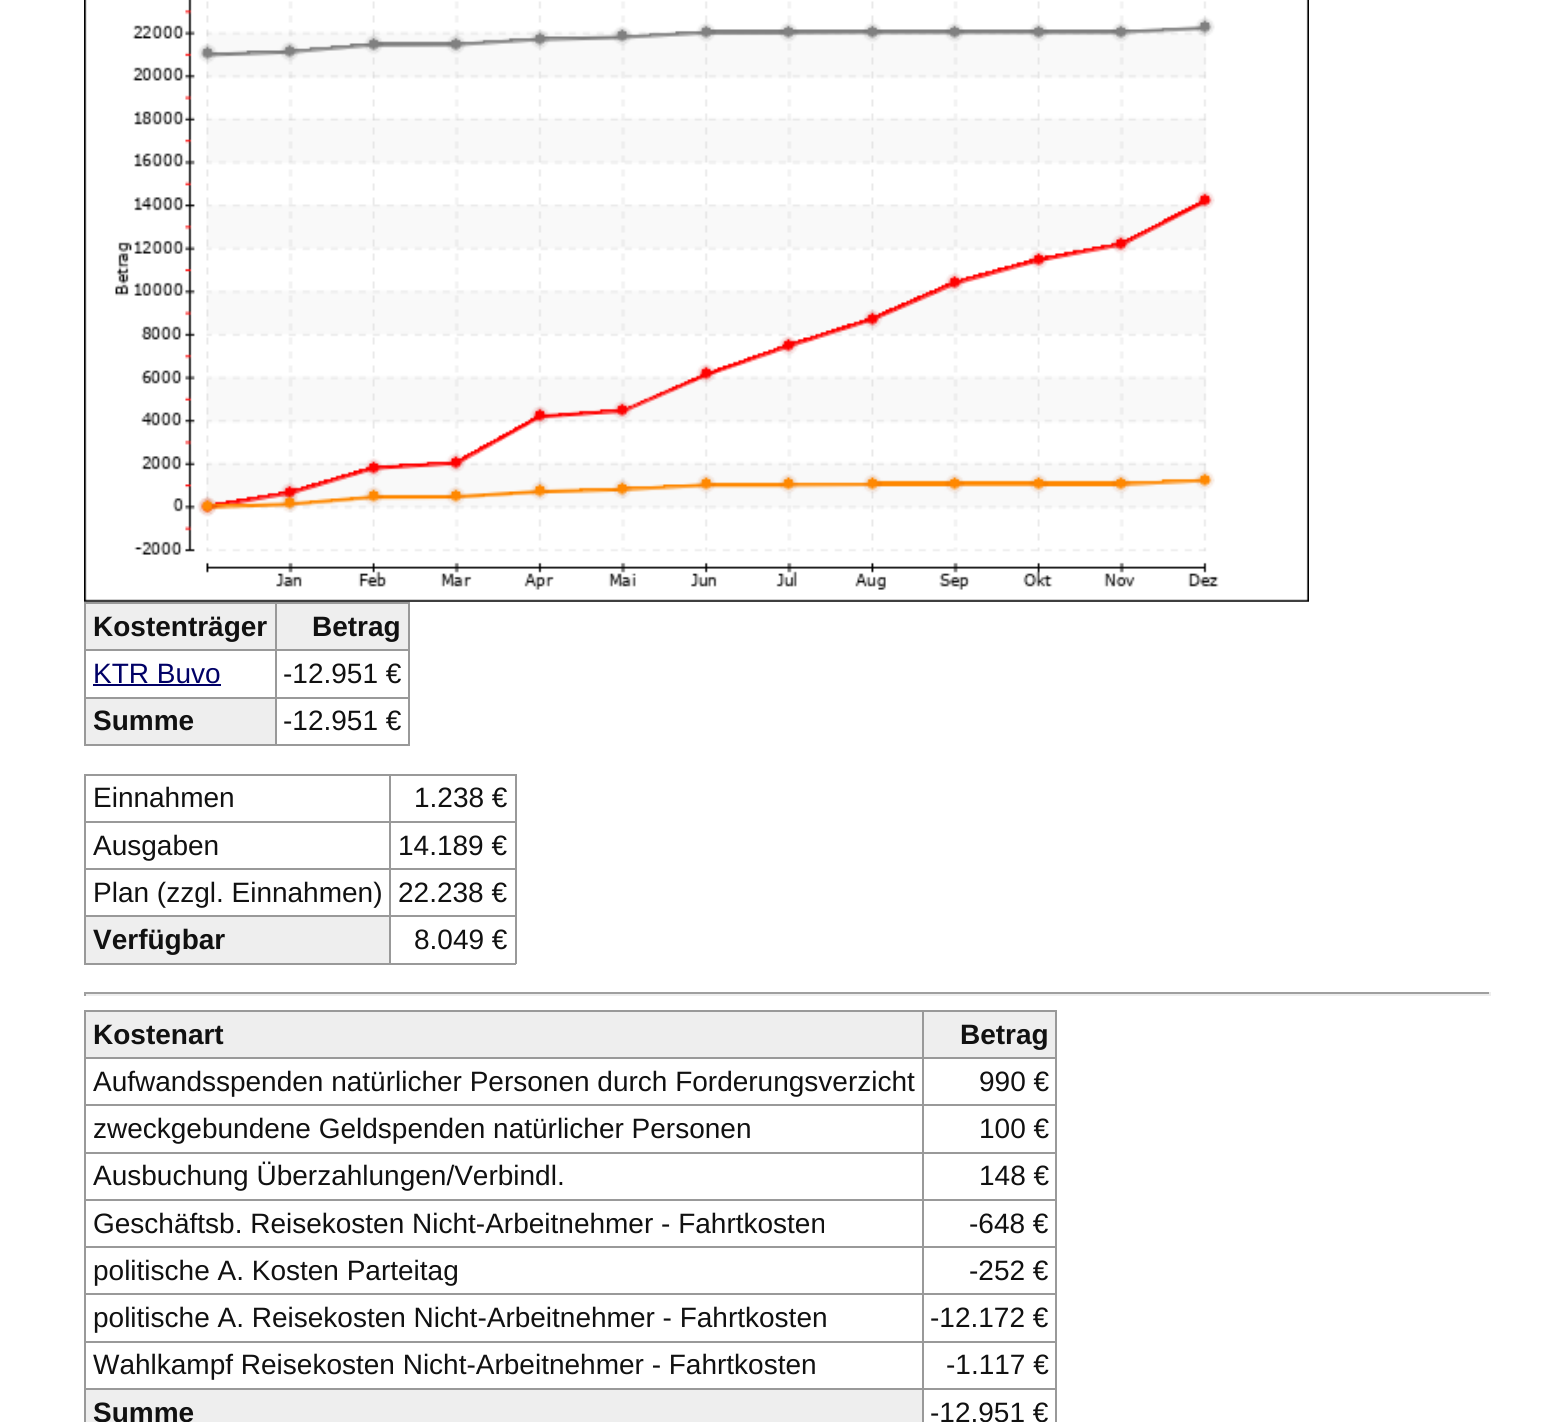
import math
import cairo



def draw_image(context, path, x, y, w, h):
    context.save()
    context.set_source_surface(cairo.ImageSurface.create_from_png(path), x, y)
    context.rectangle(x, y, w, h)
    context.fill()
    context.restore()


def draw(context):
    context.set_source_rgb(1, 1, 1)
    context.paint()
    draw_image(context, "images/1.png", 84, 0, 1225, 602)
    context.set_source_rgb(238 / 255, 238 / 255, 238 / 255)
    context.rectangle(86, 604, 189, 45)
    context.fill()
    context.set_source_rgb(153 / 255, 153 / 255, 153 / 255)
    context.rectangle(275, 602, 135, 2)
    context.fill()
    context.rectangle(275, 649, 135, 2)
    context.fill()
    context.rectangle(275, 697, 135, 2)
    context.fill()
    context.rectangle(408, 697, 2, 49)
    context.fill()
    context.rectangle(275, 744, 135, 2)
    context.fill()
    context.rectangle(275, 697, 2, 49)
    context.fill()
    context.rectangle(84, 697, 193, 2)
    context.fill()
    context.rectangle(275, 649, 2, 49)
    context.fill()
    context.rectangle(84, 649, 193, 2)
    context.fill()
    context.rectangle(275, 602, 2, 49)
    context.fill()
    context.rectangle(84, 602, 193, 2)
    context.fill()
    context.rectangle(84, 744, 193, 2)
    context.fill()
    context.rectangle(84, 697, 2, 49)
    context.fill()
    context.rectangle(84, 649, 2, 49)
    context.fill()
    context.rectangle(84, 602, 2, 49)
    context.fill()
    context.set_source_rgb(238 / 255, 238 / 255, 238 / 255)
    context.rectangle(277, 604, 131, 45)
    context.fill()
    context.set_source_rgb(153 / 255, 153 / 255, 153 / 255)
    context.rectangle(408, 649, 2, 49)
    context.fill()
    context.rectangle(408, 602, 2, 49)
    context.fill()
    context.set_source_rgb(0, 0, 102 / 255)
    context.rectangle(93, 684, 128, 2)
    context.fill()
    context.set_source_rgb(238 / 255, 238 / 255, 238 / 255)
    context.rectangle(86, 699, 189, 45)
    context.fill()
    context.set_source_rgb(153 / 255, 153 / 255, 153 / 255)
    context.rectangle(389, 774, 127, 2)
    context.fill()
    context.rectangle(389, 821, 127, 2)
    context.fill()
    context.rectangle(389, 868, 127, 2)
    context.fill()
    context.rectangle(389, 915, 127, 2)
    context.fill()
    context.rectangle(515, 915, 2, 49)
    context.fill()
    context.rectangle(389, 963, 127, 2)
    context.fill()
    context.rectangle(389, 915, 2, 49)
    context.fill()
    context.rectangle(84, 915, 306, 2)
    context.fill()
    context.rectangle(389, 868, 2, 49)
    context.fill()
    context.rectangle(84, 868, 306, 2)
    context.fill()
    context.rectangle(389, 821, 2, 49)
    context.fill()
    context.rectangle(84, 821, 306, 2)
    context.fill()
    context.rectangle(389, 774, 2, 49)
    context.fill()
    context.rectangle(84, 774, 306, 2)
    context.fill()
    context.rectangle(84, 963, 306, 2)
    context.fill()
    context.rectangle(84, 915, 2, 49)
    context.fill()
    context.rectangle(84, 868, 2, 49)
    context.fill()
    context.rectangle(84, 821, 2, 49)
    context.fill()
    context.rectangle(84, 774, 2, 49)
    context.fill()
    context.rectangle(515, 868, 2, 49)
    context.fill()
    context.rectangle(515, 821, 2, 49)
    context.fill()
    context.rectangle(515, 774, 2, 49)
    context.fill()
    context.set_source_rgb(238 / 255, 238 / 255, 238 / 255)
    context.rectangle(86, 917, 303, 46)
    context.fill()
    context.set_source_rgb(159 / 255, 159 / 255, 159 / 255)
    context.rectangle(84, 992, 1407, 2)
    context.fill()
    context.set_source_rgb(238 / 255, 238 / 255, 238 / 255)
    context.rectangle(1489, 992, 2, 4)
    context.fill()
    context.rectangle(84, 994, 1407, 2)
    context.fill()
    context.set_source_rgb(159 / 255, 159 / 255, 159 / 255)
    context.rectangle(84, 992, 2, 4)
    context.fill()
    context.set_source_rgb(238 / 255, 238 / 255, 238 / 255)
    context.rectangle(86, 1012, 836, 45)
    context.fill()
    context.set_source_rgb(153 / 255, 153 / 255, 153 / 255)
    context.rectangle(922, 1010, 135, 2)
    context.fill()
    context.rectangle(922, 1057, 135, 2)
    context.fill()
    context.rectangle(922, 1104, 135, 2)
    context.fill()
    context.rectangle(922, 1152, 135, 2)
    context.fill()
    context.rectangle(922, 1199, 135, 2)
    context.fill()
    context.rectangle(922, 1246, 135, 2)
    context.fill()
    context.rectangle(922, 1293, 135, 2)
    context.fill()
    context.rectangle(922, 1341, 135, 2)
    context.fill()
    context.rectangle(922, 1388, 135, 2)
    context.fill()
    context.rectangle(922, 1388, 2, 34)
    context.fill()
    context.rectangle(84, 1388, 840, 2)
    context.fill()
    context.rectangle(922, 1341, 2, 49)
    context.fill()
    context.rectangle(84, 1341, 840, 2)
    context.fill()
    context.rectangle(922, 1293, 2, 49)
    context.fill()
    context.rectangle(84, 1293, 840, 2)
    context.fill()
    context.rectangle(922, 1246, 2, 49)
    context.fill()
    context.rectangle(84, 1246, 840, 2)
    context.fill()
    context.rectangle(922, 1199, 2, 49)
    context.fill()
    context.rectangle(84, 1199, 840, 2)
    context.fill()
    context.rectangle(922, 1152, 2, 49)
    context.fill()
    context.rectangle(84, 1152, 840, 2)
    context.fill()
    context.rectangle(922, 1104, 2, 49)
    context.fill()
    context.rectangle(84, 1104, 840, 2)
    context.fill()
    context.rectangle(922, 1057, 2, 49)
    context.fill()
    context.rectangle(84, 1057, 840, 2)
    context.fill()
    context.rectangle(922, 1010, 2, 49)
    context.fill()
    context.rectangle(84, 1010, 840, 2)
    context.fill()
    context.rectangle(84, 1388, 2, 34)
    context.fill()
    context.rectangle(84, 1341, 2, 49)
    context.fill()
    context.rectangle(84, 1293, 2, 49)
    context.fill()
    context.rectangle(84, 1246, 2, 49)
    context.fill()
    context.rectangle(84, 1199, 2, 49)
    context.fill()
    context.rectangle(84, 1152, 2, 49)
    context.fill()
    context.rectangle(84, 1104, 2, 49)
    context.fill()
    context.rectangle(84, 1057, 2, 49)
    context.fill()
    context.rectangle(84, 1010, 2, 49)
    context.fill()
    context.set_source_rgb(238 / 255, 238 / 255, 238 / 255)
    context.rectangle(924, 1012, 131, 45)
    context.fill()
    context.set_source_rgb(153 / 255, 153 / 255, 153 / 255)
    context.rectangle(1055, 1388, 2, 34)
    context.fill()
    context.rectangle(1055, 1341, 2, 49)
    context.fill()
    context.rectangle(1055, 1293, 2, 49)
    context.fill()
    context.rectangle(1055, 1246, 2, 49)
    context.fill()
    context.rectangle(1055, 1199, 2, 49)
    context.fill()
    context.rectangle(1055, 1152, 2, 49)
    context.fill()
    context.rectangle(1055, 1104, 2, 49)
    context.fill()
    context.rectangle(1055, 1057, 2, 49)
    context.fill()
    context.rectangle(1055, 1010, 2, 49)
    context.fill()
    context.set_source_rgb(238 / 255, 238 / 255, 238 / 255)
    context.rectangle(86, 1390, 836, 32)
    context.fill()
    context.select_font_face("Liberation Sans", cairo.FontSlant.NORMAL, cairo.FontWeight.BOLD)
    context.set_font_size(28)
    context.set_source_rgb(17 / 255, 17 / 255, 17 / 255)
    context.move_to(93, 636)
    context.show_text("Kostenträger")
    context.move_to(312, 636)
    context.show_text("Betrag")
    context.select_font_face("Liberation Sans")
    context.set_source_rgb(0, 0, 102 / 255)
    context.move_to(93, 683)
    context.show_text("KTR Buvo")
    context.set_source_rgb(17 / 255, 17 / 255, 17 / 255)
    context.move_to(283, 683)
    context.show_text("-12.951 €")
    context.select_font_face("Liberation Sans", cairo.FontSlant.NORMAL, cairo.FontWeight.BOLD)
    context.move_to(93, 730)
    context.show_text("Summe")
    context.select_font_face("Liberation Sans")
    context.move_to(283, 730)
    context.show_text("-12.951 €")
    context.move_to(93, 807)
    context.show_text("Einnahmen")
    context.move_to(414, 807)
    context.show_text("1.238 €")
    context.move_to(93, 855)
    context.show_text("Ausgaben")
    context.move_to(398, 855)
    context.show_text("14.189 €")
    context.move_to(93, 902)
    context.show_text("Plan (zzgl. Einnahmen)")
    context.move_to(398, 902)
    context.show_text("22.238 €")
    context.select_font_face("Liberation Sans", cairo.FontSlant.NORMAL, cairo.FontWeight.BOLD)
    context.move_to(93, 949)
    context.show_text("Verfügbar")
    context.select_font_face("Liberation Sans")
    context.move_to(414, 949)
    context.show_text("8.049 €")
    context.select_font_face("Liberation Sans", cairo.FontSlant.NORMAL, cairo.FontWeight.BOLD)
    context.move_to(93, 1044)
    context.show_text("Kostenart")
    context.move_to(960, 1044)
    context.show_text("Betrag")
    context.select_font_face("Liberation Sans")
    context.move_to(93, 1091)
    context.show_text("Aufwandsspenden natürlicher Personen durch Forderungsverzicht")
    context.move_to(979, 1091)
    context.show_text("990 €")
    context.move_to(93, 1138)
    context.show_text("zweckgebundene Geldspenden natürlicher Personen")
    context.move_to(979, 1138)
    context.show_text("100 €")
    context.move_to(93, 1185)
    context.show_text("Ausbuchung Überzahlungen/Verbindl.")
    context.move_to(979, 1185)
    context.show_text("148 €")
    context.move_to(93, 1233)
    context.show_text("Geschäftsb. Reisekosten Nicht-Arbeitnehmer - Fahrtkosten")
    context.move_to(969, 1233)
    context.show_text("-648 €")
    context.move_to(93, 1280)
    context.show_text("politische A. Kosten Parteitag")
    context.move_to(969, 1280)
    context.show_text("-252 €")
    context.move_to(93, 1327)
    context.show_text("politische A. Reisekosten Nicht-Arbeitnehmer - Fahrtkosten")
    context.move_to(930, 1327)
    context.show_text("-12.172 €")
    context.move_to(93, 1374)
    context.show_text("Wahlkampf Reisekosten Nicht-Arbeitnehmer - Fahrtkosten")
    context.move_to(946, 1374)
    context.show_text("-1.117 €")
    context.select_font_face("Liberation Sans", cairo.FontSlant.NORMAL, cairo.FontWeight.BOLD)
    context.move_to(93, 1422)
    context.show_text("Summe")
    context.select_font_face("Liberation Sans")
    context.move_to(930, 1422)
    context.show_text("-12.951 €")


surface = cairo.ImageSurface(cairo.Format.RGB24, 1546, 1422)
context = cairo.Context(surface)
options = cairo.FontOptions()
options.set_hint_metrics(cairo.HintMetrics.OFF)
options.set_hint_style(cairo.HintStyle.NONE)
context.set_font_options(options)
context.set_miter_limit(4)
draw(context)
surface.write_to_png("out.png")
